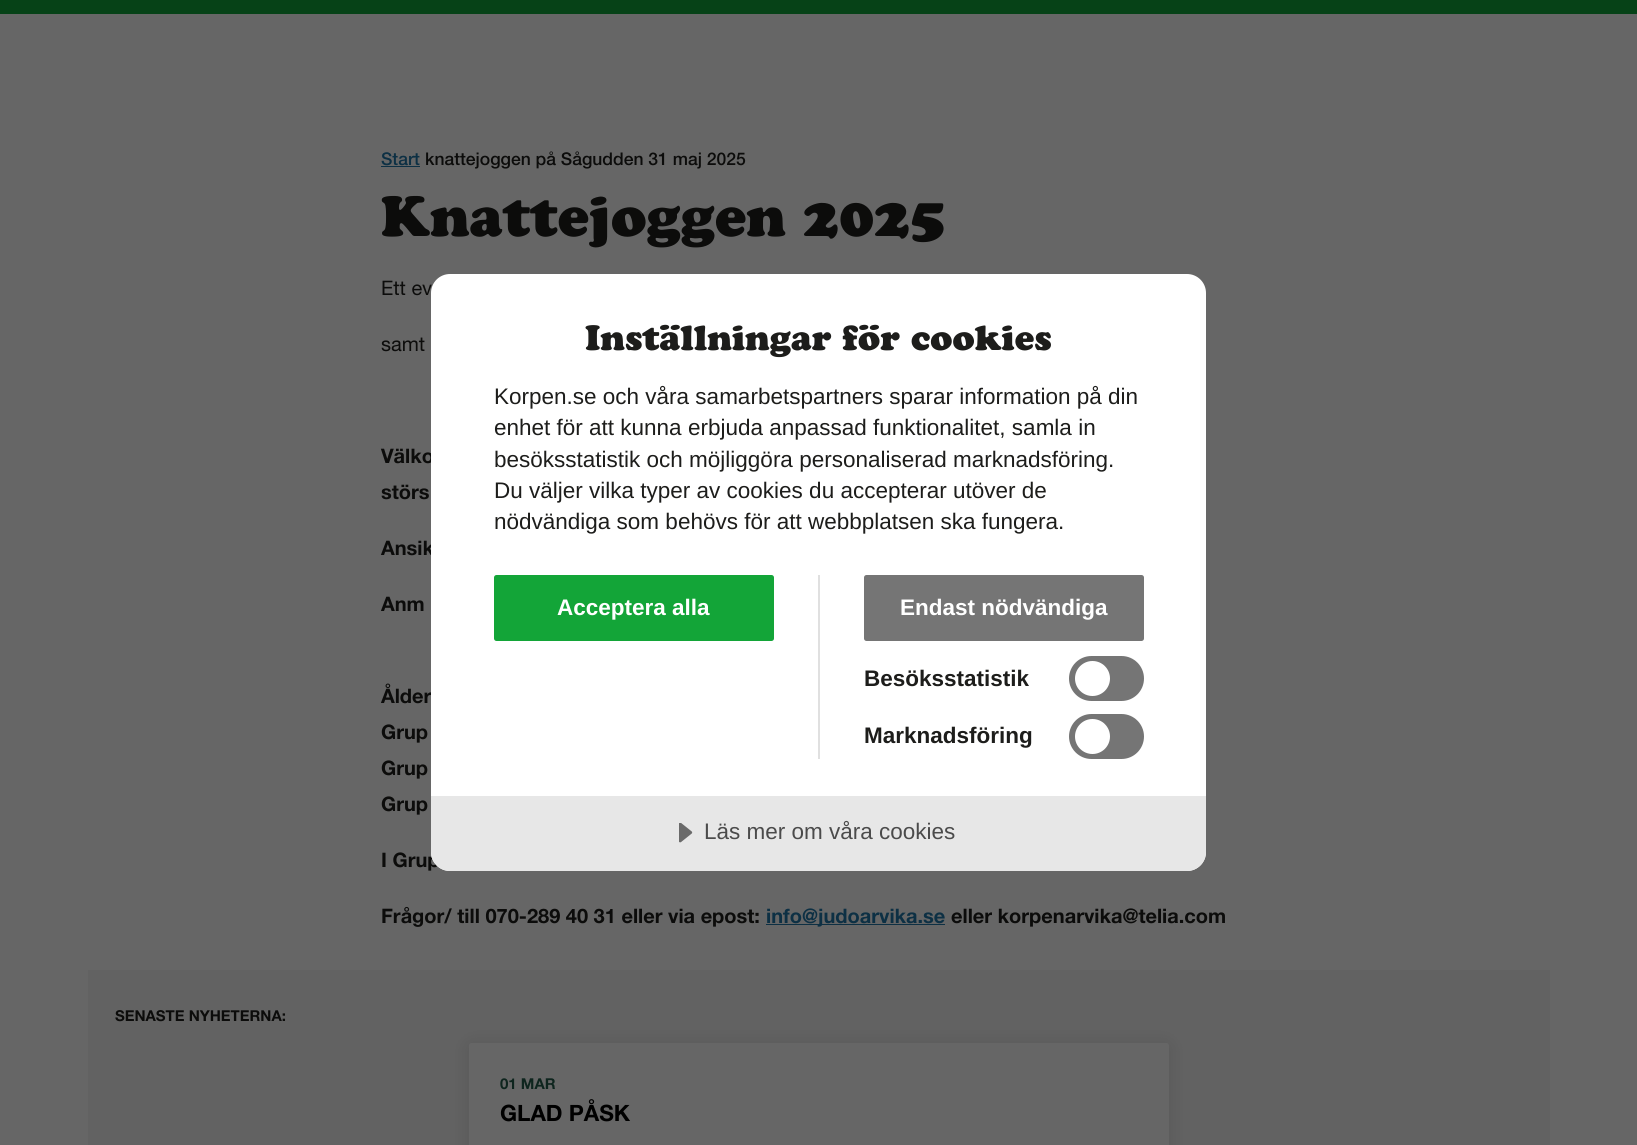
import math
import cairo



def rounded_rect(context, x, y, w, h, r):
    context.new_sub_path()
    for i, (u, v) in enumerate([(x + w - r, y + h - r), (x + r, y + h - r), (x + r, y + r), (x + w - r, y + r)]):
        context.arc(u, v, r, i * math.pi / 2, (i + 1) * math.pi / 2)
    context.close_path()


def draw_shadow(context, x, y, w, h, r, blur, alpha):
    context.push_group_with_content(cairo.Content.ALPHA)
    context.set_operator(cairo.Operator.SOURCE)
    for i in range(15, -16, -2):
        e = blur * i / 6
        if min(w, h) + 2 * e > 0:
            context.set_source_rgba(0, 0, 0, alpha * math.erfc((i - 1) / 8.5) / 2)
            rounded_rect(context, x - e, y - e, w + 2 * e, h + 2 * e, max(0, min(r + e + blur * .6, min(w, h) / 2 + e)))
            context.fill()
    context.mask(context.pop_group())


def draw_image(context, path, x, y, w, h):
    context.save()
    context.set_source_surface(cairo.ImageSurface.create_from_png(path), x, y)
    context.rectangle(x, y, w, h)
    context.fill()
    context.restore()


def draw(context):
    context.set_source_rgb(102 / 255, 102 / 255, 102 / 255)
    context.paint()
    context.set_source_rgb(6 / 255, 66 / 255, 23 / 255)
    context.rectangle(0, 0, 1637, 14)
    context.fill()
    context.set_source_rgb(13 / 255, 48 / 255, 68 / 255)
    context.rectangle(381, 166, 39, 1)
    context.fill()
    context.rectangle(766, 924, 179, 1)
    context.fill()
    context.set_source_rgb(98 / 255, 98 / 255, 98 / 255)
    context.rectangle(88, 970, 1462, 175)
    context.fill()
    context.set_source_rgb(0, 0, 0)
    draw_shadow(context, 469, 1045, 700, 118, 2.5, 9.5, 0.11)
    context.set_source_rgb(102 / 255, 102 / 255, 102 / 255)
    rounded_rect(context, 469, 1043, 700, 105, 2.5)
    context.fill()
    context.select_font_face("Helvetica Neue Medium")
    context.set_font_size(17.5)
    context.set_source_rgb(13 / 255, 48 / 255, 68 / 255)
    context.move_to(381, 165)
    context.show_text("Start")
    context.set_source_rgb(12 / 255, 12 / 255, 11 / 255)
    context.move_to(425, 165)
    context.show_text("knattejoggen på Sågudden 31 maj 2025")
    context.select_font_face("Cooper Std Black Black")
    context.set_font_size(56.25)
    context.move_to(381, 236)
    context.show_text("Knattejoggen 2025")
    context.select_font_face("Helvetica Neue")
    context.set_font_size(20)
    context.move_to(381, 295)
    context.show_text("Ett ev")
    context.move_to(381, 351)
    context.show_text("samt")
    context.select_font_face("Helvetica Neue", cairo.FontSlant.NORMAL, cairo.FontWeight.BOLD)
    context.move_to(381, 463)
    context.show_text("Välko")
    context.move_to(381, 499)
    context.show_text("störs")
    context.move_to(381, 555)
    context.show_text("Ansik")
    context.move_to(381, 611)
    context.show_text("Anm")
    context.move_to(381, 703)
    context.show_text("Ålder")
    context.move_to(381, 739)
    context.show_text("Grup")
    context.move_to(381, 775)
    context.show_text("Grup")
    context.move_to(381, 811)
    context.show_text("Grup")
    context.move_to(381, 867)
    context.show_text("I Grup")
    context.move_to(381, 923)
    context.show_text("Frågor/ till 070-289 40 31 eller via epost:")
    context.set_source_rgb(13 / 255, 48 / 255, 68 / 255)
    context.move_to(766, 923)
    context.show_text("info@judoarvika.se")
    context.set_source_rgb(12 / 255, 12 / 255, 11 / 255)
    context.move_to(951, 923)
    context.show_text("eller korpenarvika@telia.com")
    context.set_font_size(15)
    context.move_to(115, 1021)
    context.show_text("SENASTE NYHETERNA:")
    context.set_source_rgb(14 / 255, 37 / 255, 30 / 255)
    context.move_to(500, 1089)
    context.show_text("01 MAR")
    context.set_font_size(22.5)
    context.set_source_rgb(0, 0, 0)
    context.move_to(500, 1121)
    context.show_text("GLAD PÅSK")
    context.set_source_rgb(1, 1, 1)
    rounded_rect(context, 431, 274, 775, 597, 19)
    context.fill()
    context.select_font_face("Cooper Std Black Black")
    context.set_font_size(35)
    context.set_source_rgb(29 / 255, 29 / 255, 27 / 255)
    context.move_to(585, 350)
    context.show_text("Inställningar för cookies")
    context.select_font_face("Liberation Sans")
    context.set_font_size(22.5)
    context.move_to(494, 404)
    context.show_text("Korpen.se och våra samarbetspartners sparar information på din")
    context.move_to(494, 435)
    context.show_text("enhet för att kunna erbjuda anpassad funktionalitet, samla in")
    context.move_to(494, 467)
    context.show_text("besöksstatistik och möjliggöra personaliserad marknadsföring.")
    context.move_to(494, 498)
    context.show_text("Du väljer vilka typer av cookies du accepterar utöver de")
    context.move_to(494, 529)
    context.show_text("nödvändiga som behövs för att webbplatsen ska fungera.")
    context.set_source_rgb(224 / 255, 224 / 255, 224 / 255)
    context.rectangle(818, 575, 2, 184)
    context.fill()
    context.set_source_rgb(19 / 255, 165 / 255, 56 / 255)
    rounded_rect(context, 494, 575, 280, 66, 2.5)
    context.fill()
    context.select_font_face("Liberation Sans", cairo.FontSlant.NORMAL, cairo.FontWeight.BOLD)
    context.set_source_rgb(1, 1, 1)
    context.move_to(557, 615)
    context.show_text("Acceptera alla")
    context.set_source_rgb(117 / 255, 117 / 255, 117 / 255)
    rounded_rect(context, 864, 575, 280, 66, 2.5)
    context.fill()
    context.set_source_rgb(1, 1, 1)
    context.move_to(900, 615)
    context.show_text("Endast nödvändiga")
    context.set_source_rgb(29 / 255, 29 / 255, 27 / 255)
    context.move_to(864, 686)
    context.show_text("Besöksstatistik")
    context.set_source_rgb(117 / 255, 117 / 255, 117 / 255)
    rounded_rect(context, 1069, 656, 75, 45, 22.5)
    context.fill()
    context.set_source_rgb(1, 1, 1)
    context.arc(1092.5, 678.5, 17.5, 0, 2 * math.pi)
    context.fill()
    context.set_source_rgb(29 / 255, 29 / 255, 27 / 255)
    context.move_to(864, 743)
    context.show_text("Marknadsföring")
    context.set_source_rgb(117 / 255, 117 / 255, 117 / 255)
    rounded_rect(context, 1069, 714, 75, 45, 22.5)
    context.fill()
    context.set_source_rgb(1, 1, 1)
    context.arc(1092.5, 736.5, 17.5, 0, 2 * math.pi)
    context.fill()
    context.set_source_rgb(231 / 255, 231 / 255, 231 / 255)
    context.new_path()
    context.move_to(431, 796)
    context.line_to(1206, 796)
    context.line_to(1206, 852)
    context.curve_to(1206, 862.5, 1197.5, 871, 1187, 871)
    context.line_to(450, 871)
    context.curve_to(439.5, 871, 431, 862.5, 431, 852)
    context.close_path()
    context.fill()
    draw_image(context, "images/1.png", 679, 823, 14, 20)
    context.select_font_face("Liberation Sans")
    context.set_source_rgb(75 / 255, 75 / 255, 75 / 255)
    context.move_to(704, 839)
    context.show_text("Läs mer om våra cookies")


surface = cairo.ImageSurface(cairo.Format.RGB24, 1637, 1145)
context = cairo.Context(surface)
options = cairo.FontOptions()
options.set_hint_metrics(cairo.HintMetrics.OFF)
options.set_hint_style(cairo.HintStyle.NONE)
context.set_font_options(options)
context.set_miter_limit(4)
draw(context)
surface.write_to_png("out.png")
